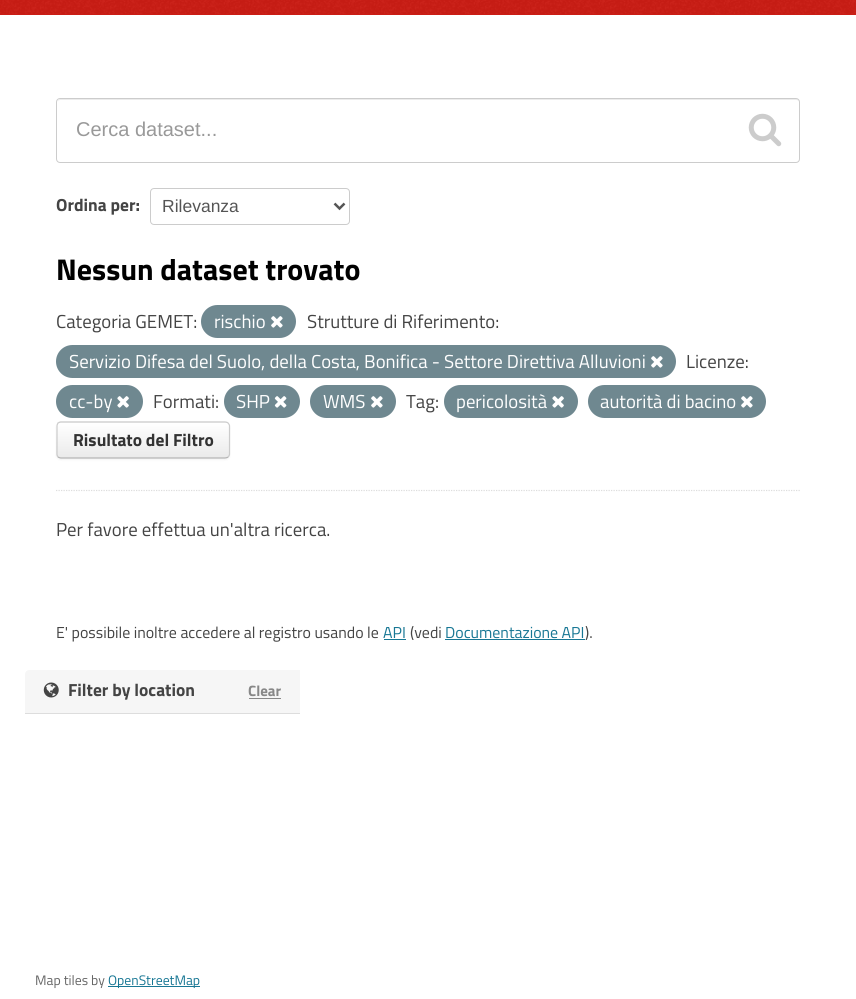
import math
import cairo



def rounded_rect(context, x, y, w, h, r):
    context.new_sub_path()
    for i, (u, v) in enumerate([(x + w - r, y + h - r), (x + r, y + h - r), (x + r, y + r), (x + w - r, y + r)]):
        context.arc(u, v, r, i * math.pi / 2, (i + 1) * math.pi / 2)
    context.close_path()


def draw_shadow(context, x, y, w, h, r, blur, alpha):
    context.push_group_with_content(cairo.Content.ALPHA)
    context.set_operator(cairo.Operator.SOURCE)
    for i in range(15, -16, -2):
        e = blur * i / 6
        if min(w, h) + 2 * e > 0:
            context.set_source_rgba(0, 0, 0, alpha * math.erfc((i - 1) / 8.5) / 2)
            rounded_rect(context, x - e, y - e, w + 2 * e, h + 2 * e, max(0, min(r + e + blur * .6, min(w, h) / 2 + e)))
            context.fill()
    context.mask(context.pop_group())


def draw_image(context, path, x, y, w, h):
    context.save()
    context.set_source_surface(cairo.ImageSurface.create_from_png(path), x, y)
    context.rectangle(x, y, w, h)
    context.fill()
    context.restore()


def draw(context):
    context.set_source_rgb(1, 1, 1)
    context.paint()
    context.set_source_rgb(203 / 255, 29 / 255, 21 / 255)
    context.rectangle(0, 0, 856, 15)
    context.fill()
    draw_image(context, "images/1.png", 0, 0, 856, 14)
    context.new_path()
    context.move_to(56, 490.5)
    context.line_to(800, 490.5)
    context.set_source_rgb(221 / 255, 221 / 255, 221 / 255)
    context.set_line_width(1.2)
    context.set_dash([1.25, 1.25])
    context.stroke()
    context.set_source_rgb(236 / 255, 236 / 255, 236 / 255)
    context.new_path()
    context.move_to(60, 100)
    context.line_to(796, 100)
    context.curve_to(798, 100, 799, 101, 799, 102)
    context.curve_to(799, 100, 798, 99, 796, 99)
    context.line_to(60, 99)
    context.curve_to(59, 99, 58, 100, 58, 102)
    context.curve_to(58, 101, 59, 100, 60, 100)
    context.close_path()
    context.fill()
    rounded_rect(context, 56.5, 98.5, 743, 64, 3.5)
    context.set_source_rgb(204 / 255, 204 / 255, 204 / 255)
    context.set_line_width(1)
    context.set_dash([])
    context.stroke()
    draw_image(context, "images/2.png", 748, 113, 34, 34)
    rounded_rect(context, 150.5, 188.5, 199, 36, 3.5)
    context.stroke()
    context.new_path()
    context.move_to(334.5, 203.5)
    context.line_to(339.5, 208.5)
    context.line_to(344.5, 203.5)
    context.set_source_rgb(85 / 255, 85 / 255, 85 / 255)
    context.set_line_width(2.5)
    context.stroke()
    context.set_source_rgb(111 / 255, 136 / 255, 144 / 255)
    rounded_rect(context, 201, 305, 95, 33, 16.5)
    context.fill()
    draw_image(context, "images/3.png", 271, 316, 12, 12)
    rounded_rect(context, 56, 345, 620, 33, 16.5)
    context.fill()
    draw_image(context, "images/3.png", 651, 356, 12, 12)
    rounded_rect(context, 56, 385, 87, 33, 16.5)
    context.fill()
    draw_image(context, "images/4.png", 117, 396, 12, 12)
    rounded_rect(context, 224, 385, 76, 33, 16.5)
    context.fill()
    draw_image(context, "images/5.png", 274, 396, 13, 12)
    rounded_rect(context, 310, 385, 86, 33, 16.5)
    context.fill()
    draw_image(context, "images/3.png", 371, 396, 12, 12)
    rounded_rect(context, 444, 385, 134, 33, 16.5)
    context.fill()
    draw_image(context, "images/4.png", 552, 396, 12, 12)
    rounded_rect(context, 588, 385, 178, 33, 16.5)
    context.fill()
    draw_image(context, "images/3.png", 741, 396, 12, 12)
    context.set_source_rgb(0, 0, 0)
    draw_shadow(context, 56, 423, 174, 37, 5, 1, 0.05)
    context.set_source_rgb(247 / 255, 247 / 255, 247 / 255)
    rounded_rect(context, 56, 421, 174, 38, 5)
    context.fill()
    context.save()
    rounded_rect(context, 56, 421, 174, 38, 5)
    context.clip()
    gradient = cairo.LinearGradient(143, 423, 143, 458)
    gradient.add_color_stop_rgba(0, 1, 1, 1, 1)
    gradient.add_color_stop_rgba(1, 234 / 255, 234 / 255, 234 / 255, 1)
    context.set_source(gradient)
    context.rectangle(56, 423, 174, 35)
    context.fill()
    context.restore()
    context.new_path()
    context.move_to(228, 457)
    context.curve_to(227.5, 457.5, 226, 458, 225, 458)
    context.line_to(61, 458)
    context.curve_to(60, 458, 59, 457.5, 58, 457)
    context.set_source_rgb(179 / 255, 179 / 255, 179 / 255)
    context.set_line_width(1.2)
    context.stroke()
    context.new_path()
    context.move_to(58, 457)
    context.curve_to(57.5, 456, 57, 455, 57, 454)
    context.line_to(57, 426)
    context.curve_to(57, 425, 57.5, 424, 58, 423)
    context.curve_to(59, 422.5, 60, 422, 61, 422)
    context.line_to(225, 422)
    context.curve_to(226, 422, 227.5, 422.5, 228, 423)
    context.curve_to(229, 424, 229.5, 425, 229.5, 426)
    context.line_to(229.5, 454)
    context.curve_to(229.5, 455, 229, 456, 228, 457)
    context.set_source_rgb(204 / 255, 204 / 255, 204 / 255)
    context.stroke()
    context.set_source_rgb(24 / 255, 119 / 255, 148 / 255)
    context.rectangle(384, 639, 22, 1)
    context.fill()
    context.rectangle(445, 639, 140, 1)
    context.fill()
    context.set_source_rgb(246 / 255, 246 / 255, 246 / 255)
    context.new_path()
    context.move_to(29, 670)
    context.line_to(300, 670)
    context.line_to(300, 714)
    context.line_to(25, 714)
    context.line_to(25, 674)
    context.curve_to(25, 672, 27, 670, 29, 670)
    context.close_path()
    context.fill()
    context.set_source_rgb(221 / 255, 221 / 255, 221 / 255)
    context.rectangle(25, 713, 275, 1)
    context.fill()
    draw_image(context, "images/6.png", 43, 682, 16, 16)
    context.set_source_rgb(136 / 255, 136 / 255, 136 / 255)
    context.rectangle(249, 698, 32, 1)
    context.fill()
    context.set_source_rgb(24 / 255, 119 / 255, 148 / 255)
    context.rectangle(108, 986, 92, 1)
    context.fill()
    context.select_font_face("Liberation Sans")
    context.set_font_size(20)
    context.set_source_rgb(153 / 255, 153 / 255, 153 / 255)
    context.move_to(76, 136)
    context.show_text("Cerca dataset...")
    context.select_font_face("Titillium Web", cairo.FontSlant.NORMAL, cairo.FontWeight.BOLD)
    context.set_font_size(17.5)
    context.set_source_rgb(68 / 255, 68 / 255, 68 / 255)
    context.move_to(56, 211)
    context.show_text("Ordina per:")
    context.select_font_face("Liberation Sans")
    context.set_source_rgb(85 / 255, 85 / 255, 85 / 255)
    context.move_to(162, 212)
    context.show_text("Rilevanza")
    context.select_font_face("Titillium Web", cairo.FontSlant.NORMAL, cairo.FontWeight.BOLD)
    context.set_font_size(30)
    context.set_source_rgb(0, 0, 0)
    context.move_to(56, 280)
    context.show_text("Nessun dataset trovato")
    context.select_font_face("Titillium Web")
    context.set_font_size(18.75)
    context.set_source_rgb(68 / 255, 68 / 255, 68 / 255)
    context.move_to(56, 328)
    context.show_text("Categoria GEMET:")
    context.set_source_rgb(1, 1, 1)
    context.move_to(214, 328)
    context.show_text("rischio")
    context.set_source_rgb(68 / 255, 68 / 255, 68 / 255)
    context.move_to(307, 328)
    context.show_text("Strutture di Riferimento:")
    context.set_source_rgb(1, 1, 1)
    context.move_to(69, 368)
    context.show_text("Servizio Difesa del Suolo, della Costa, Bonifica - Settore Direttiva Alluvioni")
    context.set_source_rgb(68 / 255, 68 / 255, 68 / 255)
    context.move_to(686, 368)
    context.show_text("Licenze:")
    context.set_source_rgb(1, 1, 1)
    context.move_to(69, 408)
    context.show_text("cc-by")
    context.set_source_rgb(68 / 255, 68 / 255, 68 / 255)
    context.move_to(153, 408)
    context.show_text("Formati:")
    context.set_source_rgb(1, 1, 1)
    context.move_to(236, 408)
    context.show_text("SHP")
    context.move_to(323, 408)
    context.show_text("WMS")
    context.set_source_rgb(68 / 255, 68 / 255, 68 / 255)
    context.move_to(406, 408)
    context.show_text("Tag:")
    context.set_source_rgb(1, 1, 1)
    context.move_to(456, 408)
    context.show_text("pericolosità")
    context.move_to(600, 408)
    context.show_text("autorità di bacino")
    context.select_font_face("Titillium Web", cairo.FontSlant.NORMAL, cairo.FontWeight.BOLD)
    context.set_font_size(17.5)
    context.set_source_rgb(51 / 255, 51 / 255, 51 / 255)
    context.move_to(73, 446)
    context.show_text("Risultato del Filtro")
    context.select_font_face("Titillium Web")
    context.set_font_size(18.75)
    context.set_source_rgb(68 / 255, 68 / 255, 68 / 255)
    context.move_to(56, 536)
    context.show_text("Per favore effettua un'altra ricerca.")
    context.set_font_size(15.9)
    context.move_to(56, 638)
    context.show_text("E' possibile inoltre accedere al registro usando le")
    context.set_source_rgb(24 / 255, 119 / 255, 148 / 255)
    context.move_to(383, 638)
    context.show_text("API")
    context.set_source_rgb(68 / 255, 68 / 255, 68 / 255)
    context.move_to(410, 638)
    context.show_text("(vedi")
    context.set_source_rgb(24 / 255, 119 / 255, 148 / 255)
    context.move_to(445, 638)
    context.show_text("Documentazione API")
    context.set_source_rgb(68 / 255, 68 / 255, 68 / 255)
    context.move_to(585, 638)
    context.show_text(").")
    context.select_font_face("Titillium Web", cairo.FontSlant.NORMAL, cairo.FontWeight.BOLD)
    context.set_font_size(17.5)
    context.move_to(68, 696)
    context.show_text("Filter by location")
    context.set_font_size(15)
    context.set_source_rgb(136 / 255, 136 / 255, 136 / 255)
    context.move_to(248, 696)
    context.show_text("Clear")
    context.select_font_face("Titillium Web")
    context.set_font_size(13.75)
    context.set_source_rgb(102 / 255, 102 / 255, 102 / 255)
    context.move_to(35, 985)
    context.show_text("Map tiles by")
    context.set_source_rgb(24 / 255, 119 / 255, 148 / 255)
    context.move_to(108, 985)
    context.show_text("OpenStreetMap")


surface = cairo.ImageSurface(cairo.Format.RGB24, 856, 999)
context = cairo.Context(surface)
options = cairo.FontOptions()
options.set_hint_metrics(cairo.HintMetrics.OFF)
options.set_hint_style(cairo.HintStyle.NONE)
context.set_font_options(options)
context.set_miter_limit(4)
draw(context)
surface.write_to_png("out.png")
